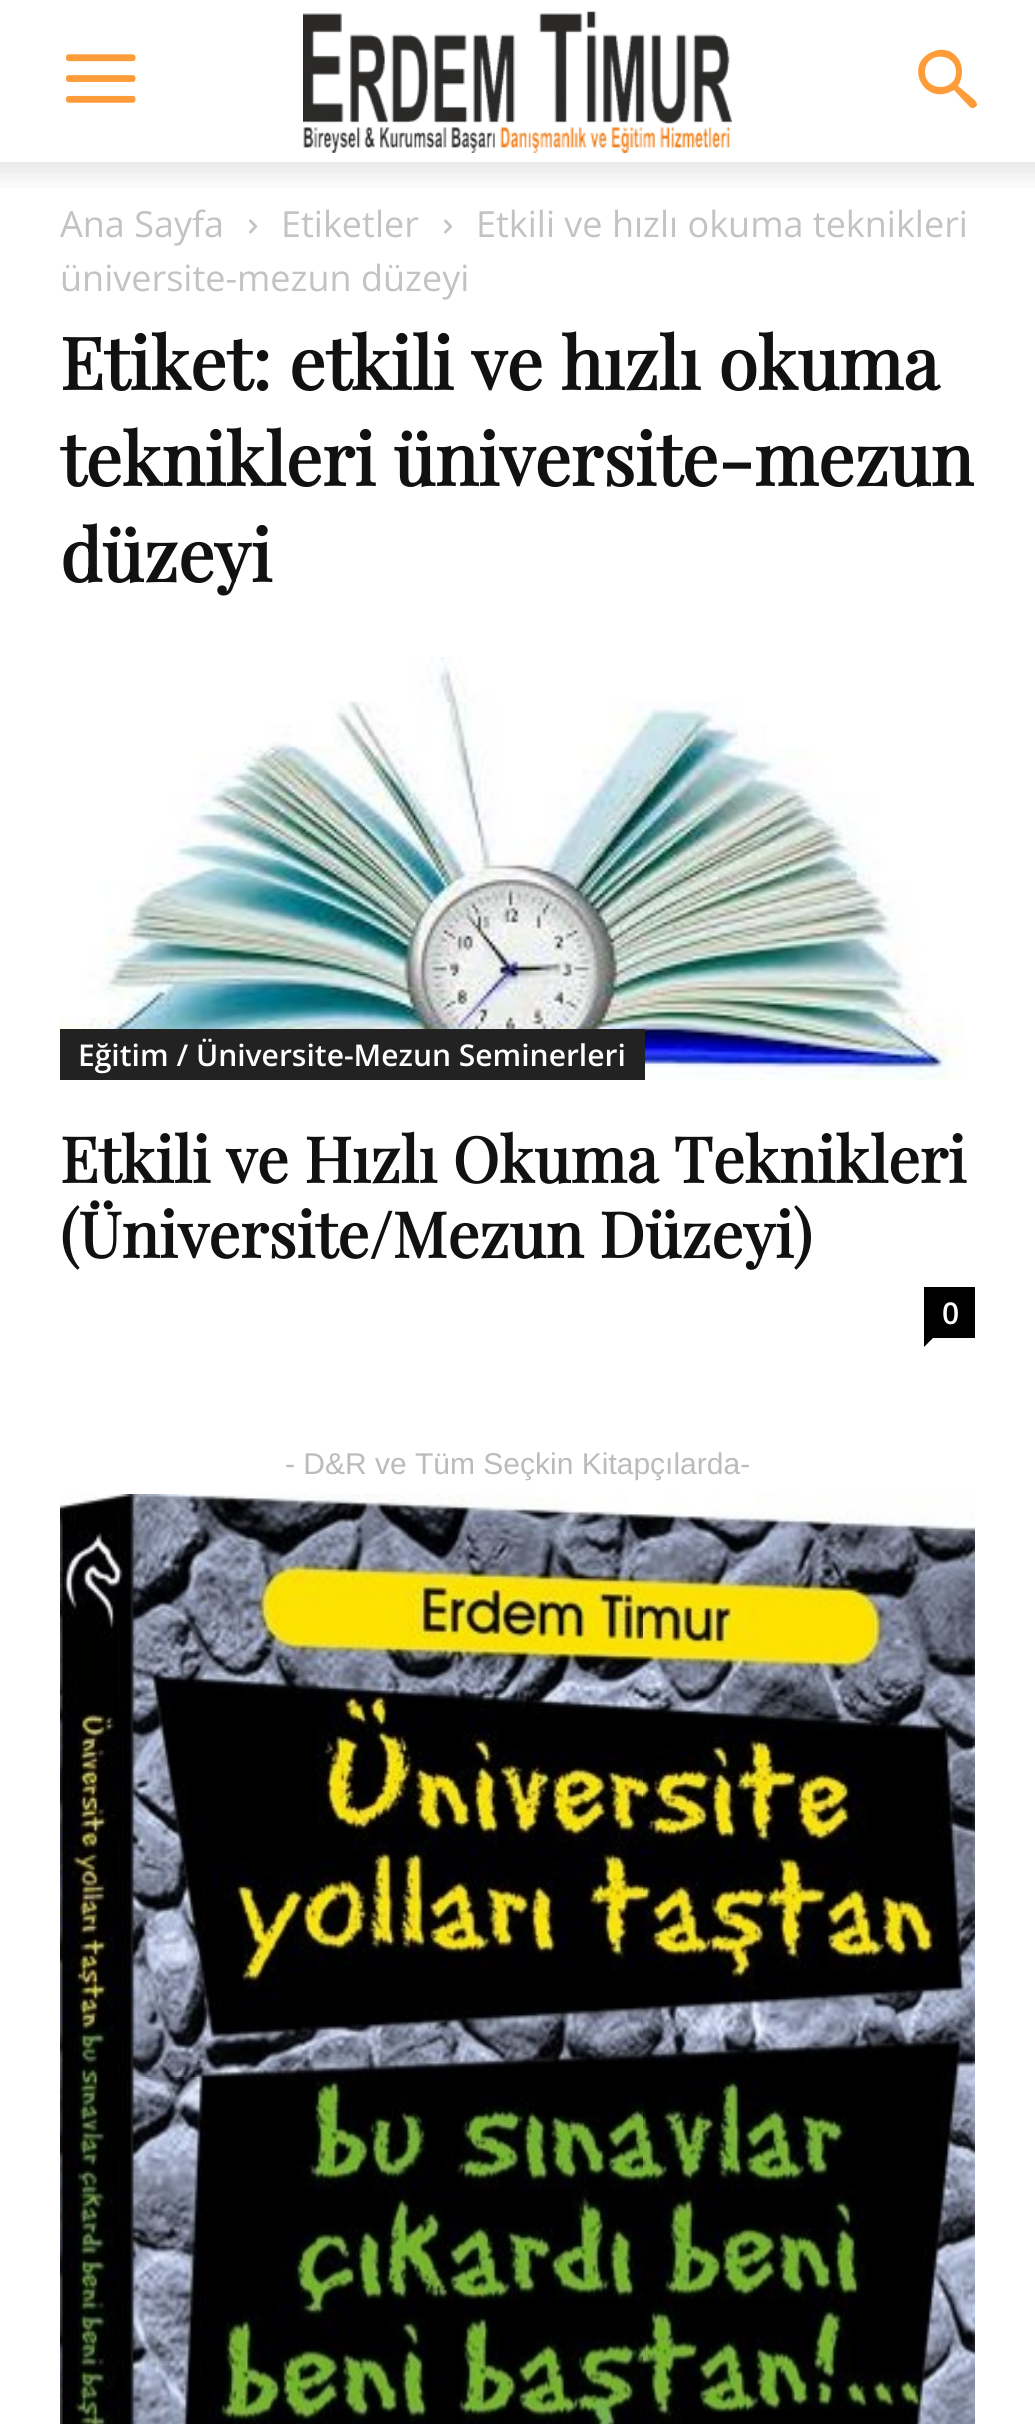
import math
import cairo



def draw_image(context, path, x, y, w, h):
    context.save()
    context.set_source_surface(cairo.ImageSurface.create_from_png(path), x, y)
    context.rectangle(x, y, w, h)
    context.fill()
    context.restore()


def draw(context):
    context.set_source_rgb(1, 1, 1)
    context.paint()
    draw_image(context, "images/1.png", 66, 54, 70, 49)
    draw_image(context, "images/2.png", 303, 11, 429, 142)
    context.set_source_rgb(1, 156 / 255, 58 / 255)
    context.new_path()
    context.move_to(956, 72)
    context.curve_to(956, 92, 925, 92, 925, 72)
    context.curve_to(925, 51, 956, 52, 956, 72)
    context.close_path()
    context.move_to(977, 105)
    context.curve_to(977, 101, 972, 98, 970, 96)
    context.line_to(958, 86)
    context.curve_to(965, 74, 963, 59, 951, 52)
    context.curve_to(945, 49, 938, 49, 932, 52)
    context.curve_to(903, 64, 924, 108, 954, 90)
    context.line_to(965, 102)
    context.curve_to(967, 103, 970, 109, 973, 108)
    context.curve_to(975, 108, 977, 106, 977, 105)
    context.close_path()
    context.fill()
    draw_image(context, "images/3.png", 0, 162, 1035, 26)
    draw_image(context, "images/4.png", 249, 219, 9, 15)
    draw_image(context, "images/4.png", 444, 219, 9, 15)
    draw_image(context, "images/5.png", 60, 657, 904, 423)
    context.set_source_rgb(34 / 255, 34 / 255, 34 / 255)
    context.rectangle(60, 1029, 585, 51)
    context.fill()
    context.set_source_rgb(0, 0, 0)
    context.rectangle(924, 1287, 51, 51)
    context.fill()
    context.new_path()
    context.move_to(924, 1338)
    context.line_to(933, 1338)
    context.line_to(924, 1347)
    context.close_path()
    context.fill()
    draw_image(context, "images/6.png", 60, 1494, 915, 930)
    context.select_font_face("Open Sans")
    context.set_font_size(36)
    context.set_source_rgb(195 / 255, 195 / 255, 195 / 255)
    context.move_to(60, 237)
    context.show_text("Ana Sayfa")
    context.move_to(281, 237)
    context.show_text("Etiketler")
    context.move_to(476, 237)
    context.show_text("Etkili ve hızlı okuma teknikleri")
    context.move_to(60, 291)
    context.show_text("üniversite-mezun düzeyi")
    context.select_font_face("Playfair Display", cairo.FontSlant.NORMAL, cairo.FontWeight.BOLD)
    context.set_font_size(72)
    context.set_source_rgb(17 / 255, 17 / 255, 17 / 255)
    context.move_to(60, 390)
    context.show_text("Etiket: etkili ve hızlı okuma")
    context.move_to(60, 486)
    context.show_text("teknikleri üniversite-mezun")
    context.move_to(60, 582)
    context.show_text("düzeyi")
    context.select_font_face("Open Sans SemiBold")
    context.set_font_size(30)
    context.set_source_rgb(1, 1, 1)
    context.move_to(78, 1066)
    context.show_text("Eğitim / Üniversite-Mezun Seminerleri")
    context.select_font_face("Playfair Display", cairo.FontSlant.NORMAL, cairo.FontWeight.BOLD)
    context.set_font_size(63)
    context.set_source_rgb(17 / 255, 17 / 255, 17 / 255)
    context.move_to(60, 1183)
    context.show_text("Etkili ve Hızlı Okuma Teknikleri")
    context.move_to(60, 1258)
    context.show_text("(Üniversite/Mezun Düzeyi)")
    context.select_font_face("Open Sans SemiBold")
    context.set_font_size(30)
    context.set_source_rgb(1, 1, 1)
    context.move_to(942, 1324)
    context.show_text("0")
    context.select_font_face("Liberation Sans")
    context.set_source_rgb(187 / 255, 187 / 255, 187 / 255)
    context.move_to(285, 1474)
    context.show_text("- D&R ve Tüm Seçkin Kitapçılarda-")


surface = cairo.ImageSurface(cairo.Format.RGB24, 1035, 2424)
context = cairo.Context(surface)
options = cairo.FontOptions()
options.set_hint_metrics(cairo.HintMetrics.OFF)
options.set_hint_style(cairo.HintStyle.NONE)
context.set_font_options(options)
context.set_miter_limit(4)
draw(context)
surface.write_to_png("out.png")
